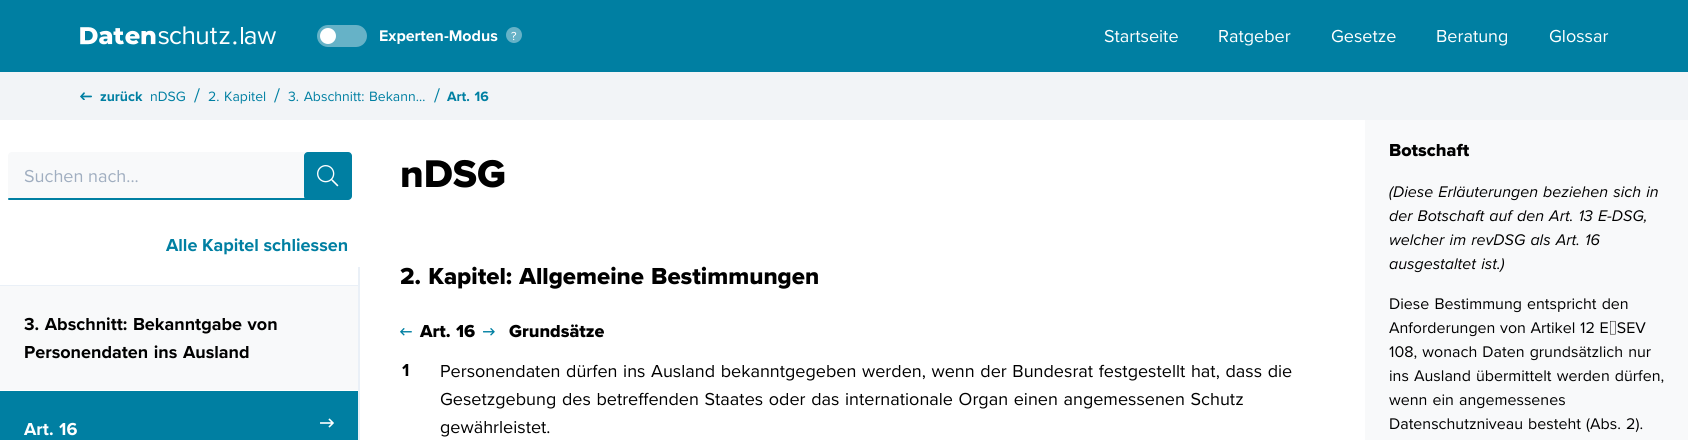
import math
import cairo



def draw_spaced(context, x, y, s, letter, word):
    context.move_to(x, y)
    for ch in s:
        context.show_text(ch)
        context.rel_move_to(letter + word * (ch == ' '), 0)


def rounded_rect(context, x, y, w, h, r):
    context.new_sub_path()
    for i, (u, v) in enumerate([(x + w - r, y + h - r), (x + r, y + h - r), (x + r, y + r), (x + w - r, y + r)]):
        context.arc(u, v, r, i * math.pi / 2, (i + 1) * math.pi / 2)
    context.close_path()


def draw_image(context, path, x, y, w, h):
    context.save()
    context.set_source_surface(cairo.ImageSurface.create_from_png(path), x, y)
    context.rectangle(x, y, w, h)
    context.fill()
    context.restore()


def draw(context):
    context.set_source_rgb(1, 1, 1)
    context.paint()
    context.set_source_rgb(0, 127 / 255, 162 / 255)
    context.rectangle(0, 0, 1688, 72)
    context.fill()
    draw_image(context, "images/1.png", 80, 26, 196, 19)
    context.set_source_rgb(102 / 255, 178 / 255, 199 / 255)
    rounded_rect(context, 317, 25, 50, 22, 11)
    context.fill()
    context.set_source_rgb(1, 1, 1)
    context.arc(328, 36, 8, 0, 2 * math.pi)
    context.fill()
    context.set_source_rgb(102 / 255, 178 / 255, 199 / 255)
    context.arc(514, 35, 8, 0, 2 * math.pi)
    context.fill()
    context.set_source_rgb(242 / 255, 244 / 255, 247 / 255)
    context.rectangle(0, 72, 1688, 48)
    context.fill()
    draw_image(context, "images/2.png", 80, 92, 12, 8)
    context.set_source_rgb(248 / 255, 249 / 255, 250 / 255)
    rounded_rect(context, 8, 152, 344, 48, 4)
    context.fill()
    context.set_source_rgb(0, 127 / 255, 162 / 255)
    rounded_rect(context, 304, 152, 48, 48, 4)
    context.fill()
    draw_image(context, "images/3.png", 317, 165, 22, 22)
    rounded_rect(context, 8, 198, 304, 2, 1)
    context.fill()
    context.set_source_rgb(234 / 255, 240 / 255, 247 / 255)
    context.rectangle(358, 267, 2, 173)
    context.fill()
    context.rectangle(0, 285, 358, 1)
    context.fill()
    context.set_source_rgb(248 / 255, 249 / 255, 250 / 255)
    context.rectangle(0, 286, 358, 104)
    context.fill()
    context.set_source_rgb(0, 127 / 255, 162 / 255)
    context.rectangle(0, 391, 358, 49)
    context.fill()
    draw_image(context, "images/4.png", 320, 418, 14, 10)
    draw_image(context, "images/5.png", 400, 328, 12, 8)
    draw_image(context, "images/6.png", 483, 328, 12, 8)
    context.set_source_rgb(248 / 255, 249 / 255, 250 / 255)
    context.rectangle(1365, 120, 323, 320)
    context.fill()
    context.select_font_face("Proxima Nova", cairo.FontSlant.NORMAL, cairo.FontWeight.BOLD)
    context.set_font_size(16)
    context.set_source_rgb(1, 1, 1)
    context.move_to(379, 41)
    context.show_text("Experten-Modus")
    context.select_font_face("Proxima Nova")
    context.set_font_size(12)
    context.move_to(511, 40)
    context.show_text("?")
    context.set_font_size(18)
    context.move_to(1104, 42)
    context.show_text("Startseite")
    context.move_to(1218, 42)
    context.show_text("Ratgeber")
    context.move_to(1331, 42)
    context.show_text("Gesetze")
    context.move_to(1436, 42)
    context.show_text("Beratung")
    context.move_to(1549, 42)
    context.show_text("Glossar")
    context.select_font_face("Proxima Nova", cairo.FontSlant.NORMAL, cairo.FontWeight.BOLD)
    context.set_font_size(14)
    context.set_source_rgb(0, 127 / 255, 162 / 255)
    context.move_to(100, 101)
    context.show_text("zurück")
    context.select_font_face("Proxima Nova")
    context.move_to(150, 101)
    context.show_text("nDSG")
    context.set_font_size(20)
    context.move_to(194, 102)
    context.show_text("/")
    context.set_font_size(14)
    draw_spaced(context, 208, 101, "2. Kapitel", 0, 1)
    context.set_font_size(20)
    context.move_to(274, 102)
    context.show_text("/")
    context.set_font_size(14)
    draw_spaced(context, 288, 101, "3. Abschnitt: Bekann…", 0, 1)
    context.set_font_size(20)
    context.move_to(434, 102)
    context.show_text("/")
    context.select_font_face("Proxima Nova", cairo.FontSlant.NORMAL, cairo.FontWeight.BOLD)
    context.set_font_size(14)
    draw_spaced(context, 447, 101, "Art. 16", 0, 1)
    context.select_font_face("Proxima Nova")
    context.set_font_size(18)
    context.set_source_rgb(160 / 255, 174 / 255, 192 / 255)
    context.move_to(24, 182)
    context.show_text("Suchen nach...")
    context.select_font_face("Proxima Nova", cairo.FontSlant.NORMAL, cairo.FontWeight.BOLD)
    context.set_source_rgb(0, 127 / 255, 162 / 255)
    context.move_to(166, 251)
    context.show_text("Alle Kapitel schliessen")
    context.set_source_rgb(0, 0, 0)
    draw_spaced(context, 24, 330, "3. Abschnitt: Bekanntgabe von", 0, 1)
    draw_spaced(context, 24, 358, "Personendaten ins Ausland", 0, 1)
    context.set_source_rgb(1, 1, 1)
    draw_spaced(context, 24, 435, "Art. 16", 0, 1)
    context.select_font_face("Proxima Nova ExtraBold")
    context.set_font_size(40)
    context.set_source_rgb(0, 0, 0)
    context.move_to(400, 187)
    context.show_text("nDSG")
    context.set_font_size(24)
    draw_spaced(context, 400, 284, "2. Kapitel: Allgemeine Bestimmungen", 0, 1)
    context.set_font_size(18)
    context.move_to(420, 337)
    context.show_text("Art.")
    context.move_to(456, 337)
    context.show_text("16")
    context.move_to(509, 337)
    context.show_text("Grundsätze")
    context.select_font_face("Proxima Nova", cairo.FontSlant.NORMAL, cairo.FontWeight.BOLD)
    context.move_to(402, 376)
    context.show_text("1")
    context.select_font_face("Proxima Nova")
    draw_spaced(context, 440, 377, "Personendaten dürfen ins Ausland bekanntgegeben werden, wenn der Bundesrat festgestellt hat, dass die", 0, 1)
    draw_spaced(context, 440, 405, "Gesetzgebung des betreffenden Staates oder das internationale Organ einen angemessenen Schutz", 0, 1)
    context.move_to(440, 433)
    context.show_text("gewährleistet.")
    context.select_font_face("Proxima Nova ExtraBold")
    context.move_to(1389, 156)
    context.show_text("Botschaft")
    context.select_font_face("Proxima Nova", cairo.FontSlant.ITALIC)
    context.set_font_size(16)
    draw_spaced(context, 1389, 197, "(Diese Erläuterungen beziehen sich in", 0, 1)
    draw_spaced(context, 1389, 221, "der Botschaft auf den Art. 13 E-DSG,", 0, 1)
    draw_spaced(context, 1389, 245, "welcher im revDSG als Art. 16", 0, 1)
    draw_spaced(context, 1389, 269, "ausgestaltet ist.)", 0, 1)
    context.select_font_face("Proxima Nova")
    draw_spaced(context, 1389, 309, "Diese Bestimmung entspricht den", 0, 1)
    draw_spaced(context, 1389, 333, "Anforderungen von Artikel 12 E‑SEV", 0, 0.5)
    draw_spaced(context, 1389, 357, "108, wonach Daten grundsätzlich nur", 0, 1)
    draw_spaced(context, 1389, 381, "ins Ausland übermittelt werden dürfen,", 0, 1)
    draw_spaced(context, 1389, 405, "wenn ein angemessenes", 0, 1)
    draw_spaced(context, 1389, 429, "Datenschutzniveau besteht (Abs. 2).", 0, 1)


surface = cairo.ImageSurface(cairo.Format.RGB24, 1688, 440)
context = cairo.Context(surface)
options = cairo.FontOptions()
options.set_hint_metrics(cairo.HintMetrics.OFF)
options.set_hint_style(cairo.HintStyle.NONE)
context.set_font_options(options)
context.set_miter_limit(4)
draw(context)
surface.write_to_png("out.png")
